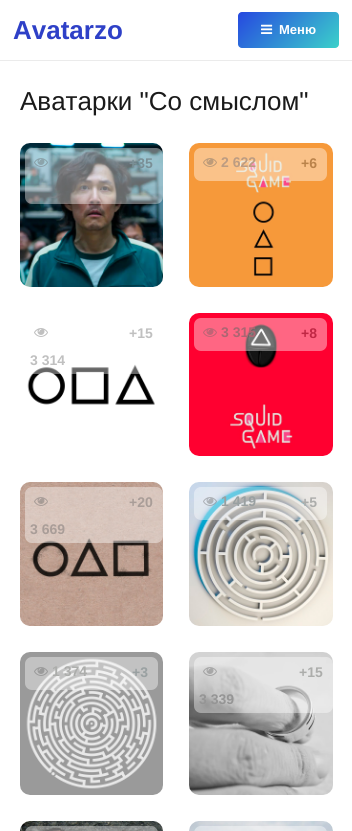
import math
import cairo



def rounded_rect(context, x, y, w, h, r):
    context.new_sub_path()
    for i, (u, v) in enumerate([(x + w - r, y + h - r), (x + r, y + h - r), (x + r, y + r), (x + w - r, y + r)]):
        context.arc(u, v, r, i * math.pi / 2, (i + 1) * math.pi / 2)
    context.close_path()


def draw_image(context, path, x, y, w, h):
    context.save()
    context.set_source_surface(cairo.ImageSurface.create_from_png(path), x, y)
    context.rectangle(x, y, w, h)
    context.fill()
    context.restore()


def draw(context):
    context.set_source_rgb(1, 1, 1)
    context.paint()
    context.set_source_rgb(235 / 255, 235 / 255, 235 / 255)
    context.rectangle(0, 60, 352, 1)
    context.fill()
    gradient = cairo.LinearGradient(254, -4.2, 323, 64)
    gradient.add_color_stop_rgba(0, 38 / 255, 72 / 255, 224 / 255, 1)
    gradient.add_color_stop_rgba(1, 59 / 255, 209 / 255, 202 / 255, 1)
    context.set_source(gradient)
    rounded_rect(context, 238, 12, 101, 36, 4)
    context.fill()
    draw_image(context, "images/1.png", 261, 24, 12, 10)
    draw_image(context, "images/2.png", 20, 143, 143, 144)
    context.set_source_rgba(1, 1, 1, 0.4)
    rounded_rect(context, 25, 148, 138, 56, 7)
    context.fill()
    draw_image(context, "images/3.png", 34, 158, 14, 9)
    draw_image(context, "images/4.png", 189, 143, 144, 144)
    rounded_rect(context, 194, 148, 133, 33, 7)
    context.fill()
    draw_image(context, "images/5.png", 203, 158, 14, 9)
    draw_image(context, "images/7.png", 27, 364, 128, 41)
    rounded_rect(context, 25, 318, 138, 56, 7)
    context.fill()
    draw_image(context, "images/6.png", 34, 328, 14, 9)
    draw_image(context, "images/8.png", 189, 313, 144, 143)
    rounded_rect(context, 194, 318, 133, 33, 7)
    context.fill()
    draw_image(context, "images/9.png", 203, 328, 14, 9)
    draw_image(context, "images/10.png", 20, 482, 143, 144)
    rounded_rect(context, 25, 487, 138, 56, 7)
    context.fill()
    draw_image(context, "images/11.png", 34, 497, 14, 9)
    draw_image(context, "images/12.png", 189, 482, 144, 144)
    rounded_rect(context, 194, 487, 133, 33, 7)
    context.fill()
    draw_image(context, "images/13.png", 203, 497, 14, 9)
    draw_image(context, "images/14.png", 20, 652, 143, 143)
    rounded_rect(context, 25, 657, 133, 33, 7)
    context.fill()
    draw_image(context, "images/15.png", 34, 667, 14, 9)
    draw_image(context, "images/16.png", 189, 652, 144, 143)
    rounded_rect(context, 194, 657, 139, 56, 7)
    context.fill()
    draw_image(context, "images/17.png", 203, 667, 14, 9)
    draw_image(context, "images/18.png", 20, 821, 143, 10)
    rounded_rect(context, 25, 826, 133, 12, 7)
    context.fill()
    draw_image(context, "images/19.png", 189, 821, 144, 10)
    rounded_rect(context, 194, 826, 133, 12, 7)
    context.fill()
    context.select_font_face("Liberation Sans", cairo.FontSlant.NORMAL, cairo.FontWeight.BOLD)
    context.set_font_size(26)
    context.set_source_rgb(46 / 255, 64 / 255, 199 / 255)
    context.move_to(13, 39)
    context.show_text("Avatarzo")
    context.set_font_size(13)
    context.set_source_rgb(1, 1, 1)
    context.move_to(279, 34)
    context.show_text("Меню")
    context.select_font_face("Liberation Sans")
    context.set_font_size(26)
    context.set_source_rgb(26 / 255, 26 / 255, 26 / 255)
    context.move_to(20, 110)
    context.show_text("Аватарки \"Со смыслом\"")
    context.select_font_face("Liberation Sans", cairo.FontSlant.NORMAL, cairo.FontWeight.BOLD)
    context.set_font_size(14)
    context.set_source_rgb(122 / 255, 143 / 255, 150 / 255)
    context.move_to(129, 168)
    context.show_text("+35")
    context.set_source_rgb(188 / 255, 156 / 255, 130 / 255)
    context.move_to(221, 167)
    context.show_text("2 622")
    context.set_source_rgb(186 / 255, 131 / 255, 74 / 255)
    context.move_to(301, 168)
    context.show_text("+6")
    context.set_source_rgb(192 / 255, 192 / 255, 192 / 255)
    context.move_to(129, 338)
    context.show_text("+15")
    context.move_to(30, 365)
    context.show_text("3 314")
    context.set_source_rgb(172 / 255, 101 / 255, 114 / 255)
    context.move_to(221, 337)
    context.show_text("3 315")
    context.set_source_rgb(192 / 255, 39 / 255, 68 / 255)
    context.move_to(301, 338)
    context.show_text("+8")
    context.set_source_rgb(169 / 255, 157 / 255, 152 / 255)
    context.move_to(129, 507)
    context.show_text("+20")
    context.move_to(30, 534)
    context.show_text("3 669")
    context.set_source_rgb(153 / 255, 160 / 255, 161 / 255)
    context.move_to(221, 506)
    context.show_text("1 419")
    context.set_source_rgb(172 / 255, 173 / 255, 171 / 255)
    context.move_to(301, 507)
    context.show_text("+5")
    context.move_to(52, 676)
    context.show_text("1 374")
    context.set_source_rgb(153 / 255, 160 / 255, 161 / 255)
    context.move_to(132, 677)
    context.show_text("+3")
    context.set_source_rgb(172 / 255, 173 / 255, 171 / 255)
    context.move_to(299, 677)
    context.show_text("+15")
    context.set_source_rgb(149 / 255, 149 / 255, 149 / 255)
    context.move_to(199, 704)
    context.show_text("3 339")


surface = cairo.ImageSurface(cairo.Format.RGB24, 352, 831)
context = cairo.Context(surface)
options = cairo.FontOptions()
options.set_hint_metrics(cairo.HintMetrics.OFF)
options.set_hint_style(cairo.HintStyle.NONE)
context.set_font_options(options)
context.set_miter_limit(4)
draw(context)
surface.write_to_png("out.png")
